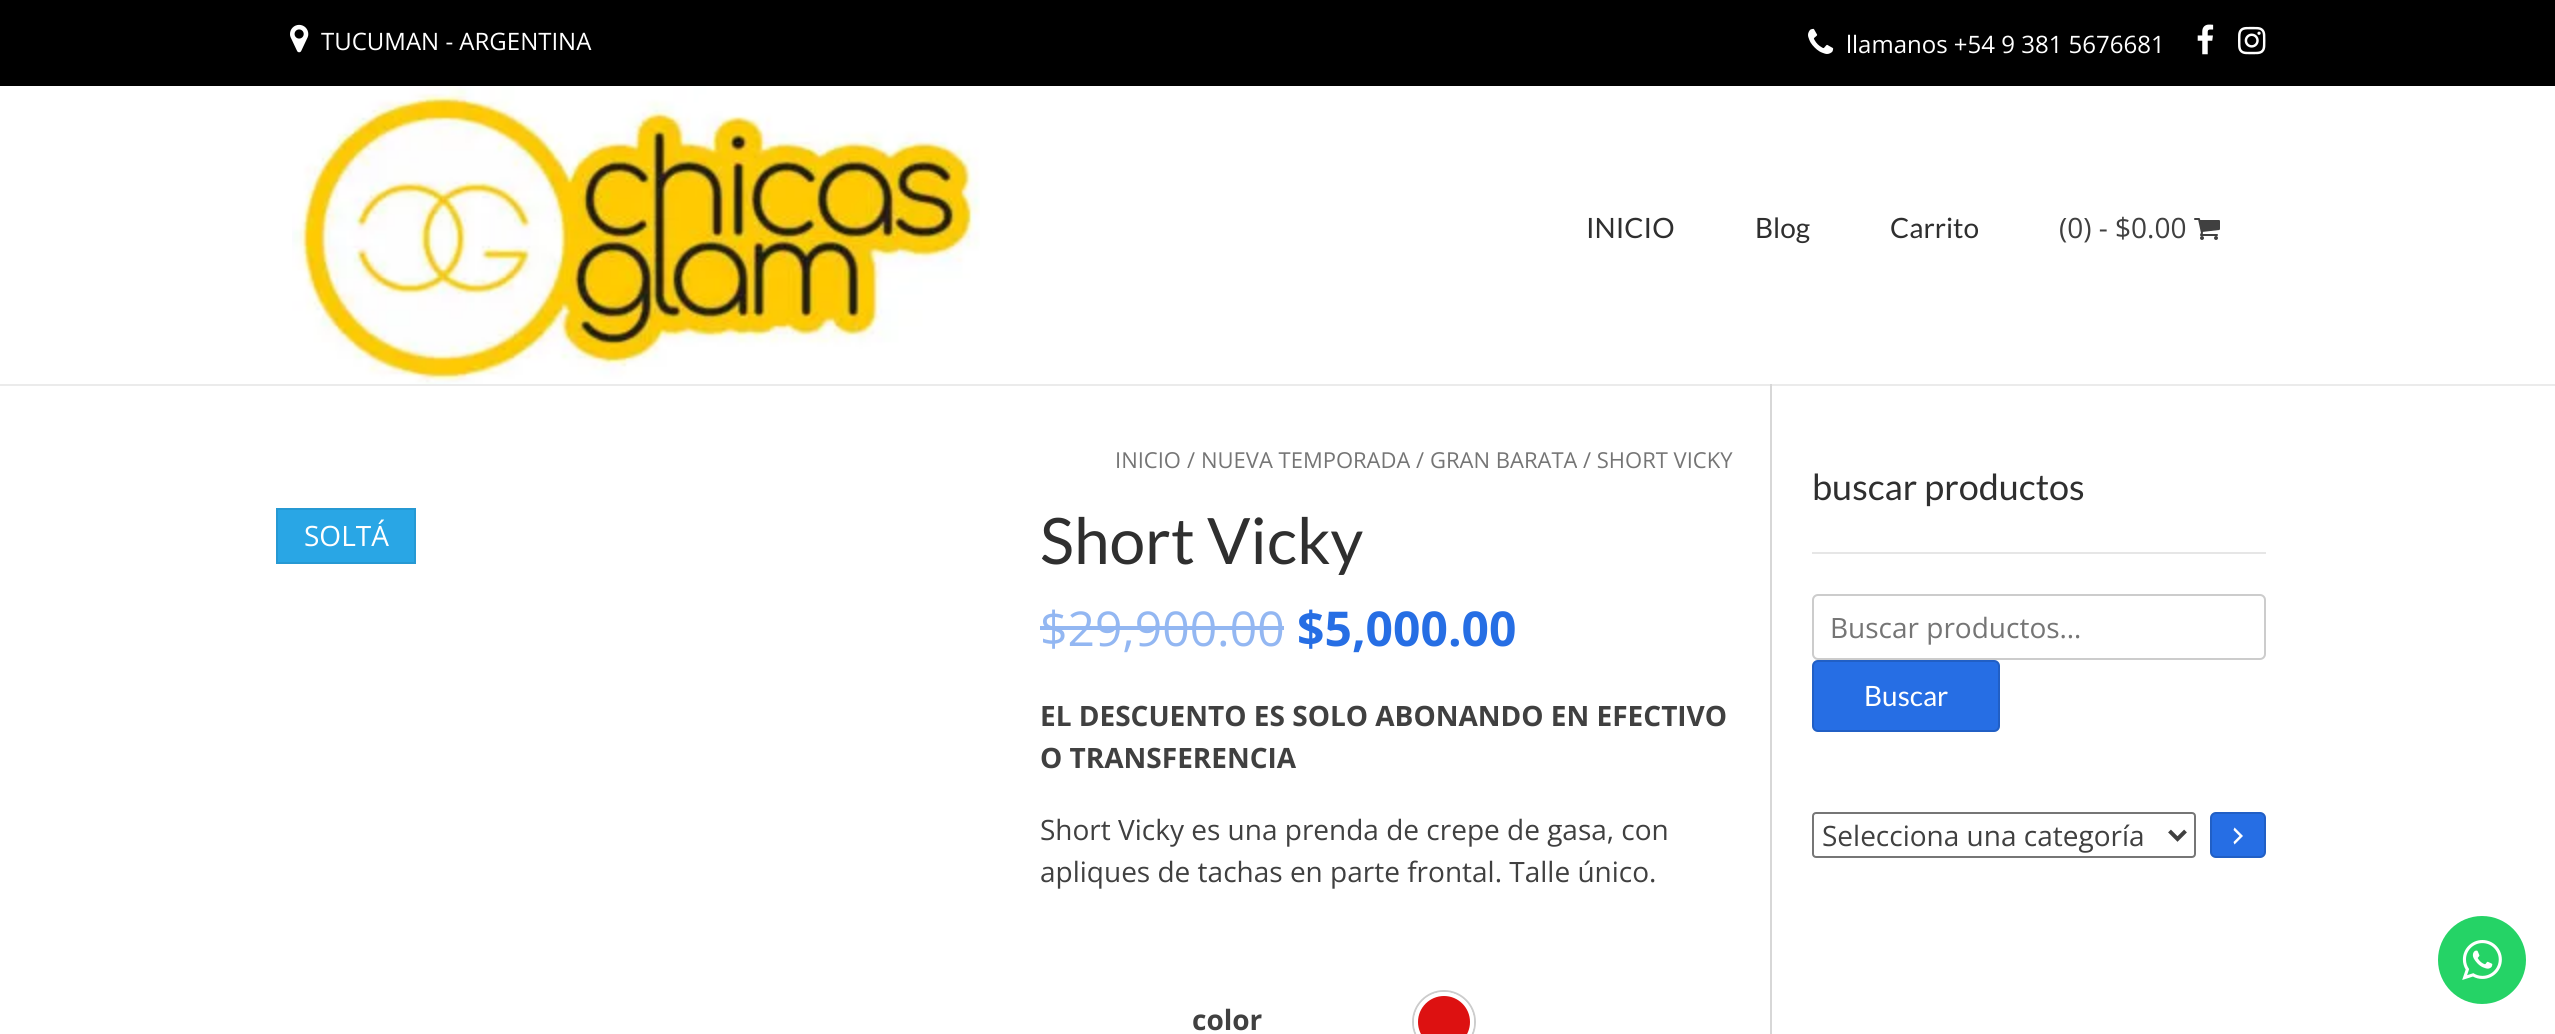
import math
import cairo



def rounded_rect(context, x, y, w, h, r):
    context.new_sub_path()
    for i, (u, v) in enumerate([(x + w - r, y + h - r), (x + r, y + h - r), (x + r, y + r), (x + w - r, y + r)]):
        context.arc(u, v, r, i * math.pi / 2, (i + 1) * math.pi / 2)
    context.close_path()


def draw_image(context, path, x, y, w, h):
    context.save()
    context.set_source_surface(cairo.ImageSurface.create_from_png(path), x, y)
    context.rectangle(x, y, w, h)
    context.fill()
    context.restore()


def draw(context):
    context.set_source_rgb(1, 1, 1)
    context.paint()
    context.set_source_rgb(235 / 255, 235 / 255, 235 / 255)
    context.rectangle(0, 384, 2555, 2)
    context.fill()
    context.set_source_rgb(0, 0, 0)
    context.rectangle(0, 0, 2555, 86)
    context.fill()
    draw_image(context, "images/1.png", 290, 24, 19, 29)
    draw_image(context, "images/2.png", 1808, 28, 26, 26)
    draw_image(context, "images/3.png", 2197, 24, 17, 31)
    draw_image(context, "images/4.png", 2238, 26, 28, 29)
    draw_image(context, "images/5.png", 292, 86, 688, 298)
    draw_image(context, "images/6.png", 2194, 218, 26, 22)
    context.set_source_rgb(215 / 255, 215 / 255, 215 / 255)
    context.rectangle(1770, 384, 2, 650)
    context.fill()
    context.set_source_rgb(41 / 255, 166 / 255, 229 / 255)
    context.rectangle(277, 509, 138, 54)
    context.fill_preserve()
    context.set_source_rgb(38 / 255, 153 / 255, 211 / 255)
    context.stroke()
    context.set_source_rgb(147 / 255, 183 / 255, 242 / 255)
    context.rectangle(1040, 626, 244, 4)
    context.fill()
    context.arc(1444, 1022, 31, 0, 2 * math.pi)
    context.set_source_rgb(204 / 255, 204 / 255, 204 / 255)
    context.stroke()
    context.set_source_rgb(1, 1, 1)
    context.arc(1444, 1022, 30, 0, 2 * math.pi)
    context.fill()
    context.set_source_rgb(221 / 255, 17 / 255, 17 / 255)
    context.arc(1444, 1022, 26, 0, 2 * math.pi)
    context.fill()
    context.set_source_rgb(230 / 255, 230 / 255, 230 / 255)
    context.rectangle(1812, 552, 454, 2)
    context.fill()
    rounded_rect(context, 1813, 595, 452, 64, 5)
    context.set_source_rgb(204 / 255, 204 / 255, 204 / 255)
    context.stroke()
    context.set_source_rgb(38 / 255, 110 / 255, 228 / 255)
    rounded_rect(context, 1812, 660, 188, 72, 6)
    context.fill()
    rounded_rect(context, 1813, 661, 186, 70, 5)
    context.set_source_rgba(0, 0, 0, 0.14)
    context.stroke()
    rounded_rect(context, 1813, 813, 382, 44, 3)
    context.set_source_rgb(118 / 255, 118 / 255, 118 / 255)
    context.stroke()
    context.new_path()
    context.move_to(2169.5, 831)
    context.line_to(2177.5, 839)
    context.line_to(2185.5, 831)
    context.set_source_rgb(64 / 255, 64 / 255, 64 / 255)
    context.set_line_width(4)
    context.stroke()
    context.set_source_rgb(38 / 255, 110 / 255, 228 / 255)
    rounded_rect(context, 2210, 812, 56, 46, 6)
    context.fill()
    rounded_rect(context, 2211, 813, 54, 44, 5)
    context.set_source_rgba(0, 0, 0, 0.14)
    context.set_line_width(2)
    context.stroke()
    context.set_source_rgb(1, 1, 1)
    context.new_path()
    context.move_to(2233.5, 842)
    context.line_to(2239.5, 836)
    context.line_to(2233.5, 830)
    context.line_to(2234.5, 827.5)
    context.line_to(2243, 836)
    context.line_to(2234.5, 844.5)
    context.close_path()
    context.fill()
    context.set_source_rgb(37 / 255, 211 / 255, 102 / 255)
    context.arc(2482, 960, 44, 0, 2 * math.pi)
    context.fill()
    draw_image(context, "images/7.png", 2462, 940, 40, 40)
    context.select_font_face("Open Sans")
    context.set_font_size(24)
    context.set_source_rgb(1, 1, 1)
    context.move_to(321, 50)
    context.show_text("TUCUMAN - ARGENTINA")
    context.move_to(1846, 53)
    context.show_text("llamanos +54 9 381 5676681")
    context.select_font_face("Lato")
    context.set_font_size(28)
    context.set_source_rgb(47 / 255, 47 / 255, 47 / 255)
    context.move_to(1586, 238)
    context.show_text("INICIO")
    context.move_to(1755, 238)
    context.show_text("Blog")
    context.move_to(1890, 238)
    context.show_text("Carrito")
    context.select_font_face("Open Sans")
    context.set_source_rgb(64 / 255, 64 / 255, 64 / 255)
    context.move_to(2059, 238)
    context.show_text("(0) - $0.00")
    context.set_font_size(22)
    context.set_source_rgb(117 / 255, 117 / 255, 117 / 255)
    context.move_to(1115, 468)
    context.show_text("INICIO")
    context.move_to(1187, 468)
    context.show_text("/")
    context.move_to(1201, 468)
    context.show_text("NUEVA TEMPORADA")
    context.move_to(1416, 468)
    context.show_text("/")
    context.move_to(1430, 468)
    context.show_text("GRAN BARATA")
    context.move_to(1583, 468)
    context.show_text("/ SHORT VICKY")
    context.set_font_size(28)
    context.set_source_rgb(1, 1, 1)
    context.move_to(304, 546)
    context.show_text("SOLTÁ")
    context.select_font_face("Lato")
    context.set_font_size(64)
    context.set_source_rgb(47 / 255, 47 / 255, 47 / 255)
    context.move_to(1040, 564)
    context.show_text("Short Vicky")
    context.select_font_face("Open Sans")
    context.set_font_size(48)
    context.set_source_rgb(147 / 255, 183 / 255, 242 / 255)
    context.move_to(1040, 646)
    context.show_text("$29,900.00")
    context.select_font_face("Open Sans", cairo.FontSlant.NORMAL, cairo.FontWeight.BOLD)
    context.set_source_rgb(38 / 255, 110 / 255, 228 / 255)
    context.move_to(1297, 646)
    context.show_text("$5,000.00")
    context.set_font_size(28)
    context.set_source_rgb(64 / 255, 64 / 255, 64 / 255)
    context.move_to(1040, 726)
    context.show_text("EL DESCUENTO ES SOLO ABONANDO EN EFECTIVO")
    context.move_to(1040, 768)
    context.show_text("O TRANSFERENCIA")
    context.select_font_face("Open Sans")
    context.move_to(1040, 840)
    context.show_text("Short Vicky es una prenda de crepe de gasa, con")
    context.move_to(1040, 882)
    context.show_text("apliques de tachas en parte frontal. Talle único.")
    context.select_font_face("Open Sans", cairo.FontSlant.NORMAL, cairo.FontWeight.BOLD)
    context.move_to(1192, 1030)
    context.show_text("color")
    context.select_font_face("Lato")
    context.set_font_size(36)
    context.set_source_rgb(47 / 255, 47 / 255, 47 / 255)
    context.move_to(1812, 500)
    context.show_text("buscar productos")
    context.select_font_face("Open Sans")
    context.set_font_size(28)
    context.set_source_rgb(117 / 255, 117 / 255, 117 / 255)
    context.move_to(1830, 638)
    context.show_text("Buscar productos…")
    context.select_font_face("Lato")
    context.set_source_rgb(1, 1, 1)
    context.move_to(1864, 706)
    context.show_text("Buscar")
    context.select_font_face("Open Sans")
    context.set_source_rgb(64 / 255, 64 / 255, 64 / 255)
    context.move_to(1822, 846)
    context.show_text("Selecciona una categoría")


surface = cairo.ImageSurface(cairo.Format.RGB24, 2555, 1034)
context = cairo.Context(surface)
options = cairo.FontOptions()
options.set_hint_metrics(cairo.HintMetrics.OFF)
options.set_hint_style(cairo.HintStyle.NONE)
context.set_font_options(options)
context.set_miter_limit(4)
draw(context)
surface.write_to_png("out.png")
